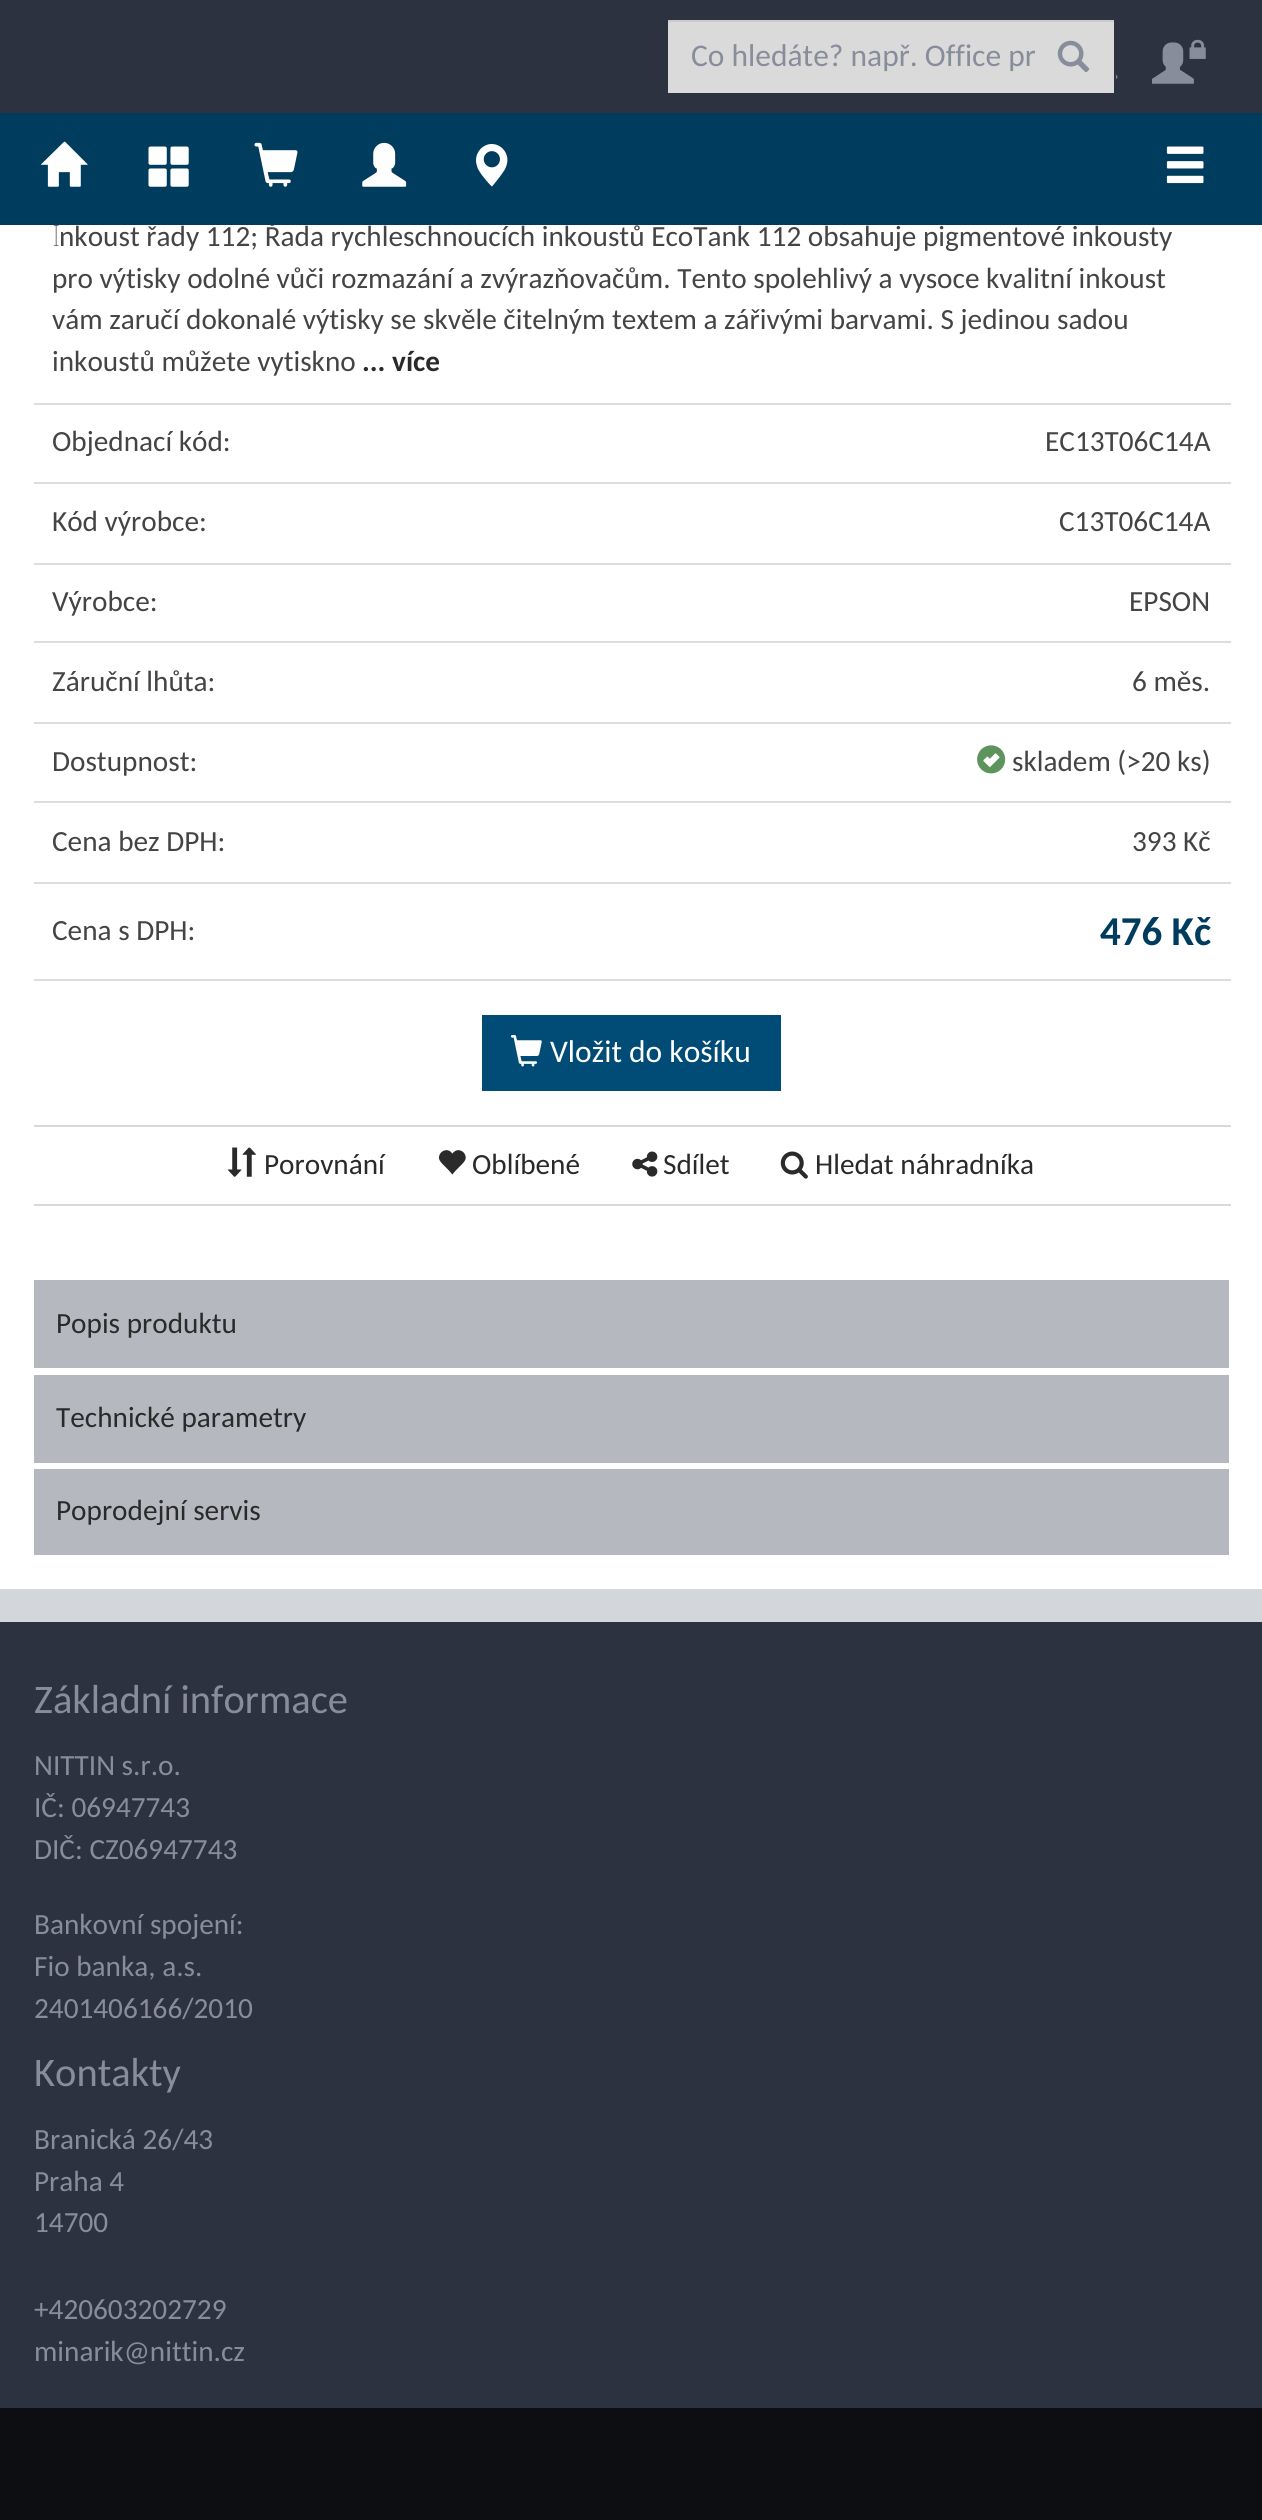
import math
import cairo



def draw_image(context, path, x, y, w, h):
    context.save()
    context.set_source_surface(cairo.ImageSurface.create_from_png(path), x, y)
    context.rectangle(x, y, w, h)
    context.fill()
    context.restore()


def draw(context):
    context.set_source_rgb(211 / 255, 214 / 255, 219 / 255)
    context.paint()
    context.set_source_rgb(44 / 255, 50 / 255, 63 / 255)
    context.rectangle(0, 0, 1262, 113)
    context.fill()
    context.set_source_rgb(219 / 255, 218 / 255, 218 / 255)
    context.rectangle(668, 22, 446, 71)
    context.fill()
    context.set_source_rgb(203 / 255, 202 / 255, 202 / 255)
    context.rectangle(668, 20, 446, 2)
    context.fill()
    draw_image(context, "images/1.png", 1057, 40, 33, 33)
    draw_image(context, "images/2.png", 1152, 39, 54, 45)
    draw_image(context, "images/3.png", 1116, 74, 2, 5)
    context.set_source_rgb(1, 1, 1)
    context.rectangle(0, 225, 1262, 1364)
    context.fill()
    context.set_source_rgb(221 / 255, 221 / 255, 221 / 255)
    context.rectangle(34, 403, 1197, 2)
    context.fill()
    context.rectangle(34, 482, 1197, 2)
    context.fill()
    context.rectangle(34, 563, 1197, 2)
    context.fill()
    context.rectangle(34, 641, 1197, 2)
    context.fill()
    context.rectangle(34, 722, 1197, 2)
    context.fill()
    draw_image(context, "images/10.png", 977, 745, 29, 29)
    context.rectangle(34, 801, 1197, 2)
    context.fill()
    context.rectangle(34, 882, 1197, 2)
    context.fill()
    context.rectangle(34, 979, 1197, 2)
    context.fill()
    context.set_source_rgb(0, 76 / 255, 119 / 255)
    context.rectangle(482, 1015, 299, 76)
    context.fill()
    draw_image(context, "images/11.png", 510, 1035, 32, 32)
    context.set_source_rgb(217 / 255, 217 / 255, 217 / 255)
    context.rectangle(34, 1125, 1197, 2)
    context.fill()
    context.rectangle(34, 1204, 1197, 2)
    context.fill()
    draw_image(context, "images/12.png", 228, 1147, 28, 30)
    draw_image(context, "images/13.png", 438, 1150, 28, 25)
    draw_image(context, "images/14.png", 632, 1151, 26, 26)
    draw_image(context, "images/15.png", 780, 1151, 28, 28)
    context.set_source_rgb(181 / 255, 185 / 255, 191 / 255)
    context.rectangle(34, 1280, 1195, 88)
    context.fill()
    context.rectangle(34, 1375, 1195, 88)
    context.fill()
    context.rectangle(34, 1469, 1195, 86)
    context.fill()
    context.set_source_rgb(44 / 255, 50 / 255, 63 / 255)
    context.rectangle(0, 1622, 1262, 786)
    context.fill()
    context.set_source_rgb(13 / 255, 14 / 255, 18 / 255)
    context.rectangle(0, 2408, 1262, 112)
    context.fill()
    context.select_font_face("Carlito")
    context.set_font_size(31.5)
    context.set_source_rgb(136 / 255, 141 / 255, 155 / 255)
    context.move_to(691, 66)
    context.show_text("Co hledáte? např. Office pr")
    context.select_font_face("Noto Sans Thin")
    context.set_font_size(29.25)
    context.set_source_rgb(68 / 255, 68 / 255, 68 / 255)
    context.move_to(52, 246)
    context.show_text("I")
    context.select_font_face("Carlito")
    context.move_to(59, 246)
    context.show_text("nkoust řady 112; Řada rychleschnoucích inkoustů EcoTank 112 obsahuje pigmentové inkousty")
    context.set_source_rgb(0, 60 / 255, 93 / 255)
    context.rectangle(0, 113, 1262, 112)
    context.fill()
    draw_image(context, "images/9.png", 1166, 146, 38, 38)
    draw_image(context, "images/8.png", 476, 144, 32, 43)
    draw_image(context, "images/7.png", 362, 142, 45, 45)
    draw_image(context, "images/6.png", 254, 142, 44, 45)
    draw_image(context, "images/5.png", 148, 146, 41, 41)
    draw_image(context, "images/4.png", 41, 141, 47, 46)
    context.set_source_rgb(68 / 255, 68 / 255, 68 / 255)
    context.move_to(52, 288)
    context.show_text("pro výtisky odolné vůči rozmazání a zvýrazňovačům. Tento spolehlivý a vysoce kvalitní inkoust")
    context.move_to(52, 329)
    context.show_text("vám zaručí dokonalé výtisky se skvěle čitelným textem a zářivými barvami. S jedinou sadou")
    context.move_to(52, 371)
    context.show_text("inkoustů můžete vytiskno")
    context.select_font_face("Carlito", cairo.FontSlant.NORMAL, cairo.FontWeight.BOLD)
    context.set_source_rgb(42 / 255, 42 / 255, 42 / 255)
    context.move_to(362, 371)
    context.show_text("... více")
    context.select_font_face("Carlito")
    context.set_source_rgb(68 / 255, 68 / 255, 68 / 255)
    context.move_to(52, 451)
    context.show_text("Objednací kód:")
    context.move_to(1045, 451)
    context.show_text("EC13T06C14A")
    context.move_to(52, 531)
    context.show_text("Kód výrobce:")
    context.move_to(1059, 531)
    context.show_text("C13T06C14A")
    context.move_to(52, 611)
    context.show_text("Výrobce:")
    context.move_to(1129, 611)
    context.show_text("EPSON")
    context.move_to(52, 691)
    context.show_text("Záruční lhůta:")
    context.move_to(1132, 691)
    context.show_text("6 měs.")
    context.move_to(52, 771)
    context.show_text("Dostupnost:")
    context.move_to(1012, 771)
    context.show_text("skladem (>20 ks)")
    context.move_to(52, 851)
    context.show_text("Cena bez DPH:")
    context.move_to(1132, 851)
    context.show_text("393 Kč")
    context.move_to(52, 940)
    context.show_text("Cena s DPH:")
    context.select_font_face("Carlito", cairo.FontSlant.NORMAL, cairo.FontWeight.BOLD)
    context.set_font_size(41)
    context.set_source_rgb(0, 60 / 255, 93 / 255)
    context.move_to(1100, 945)
    context.show_text("476 Kč")
    context.select_font_face("Carlito")
    context.set_font_size(31.5)
    context.set_source_rgb(1, 1, 1)
    context.move_to(550, 1062)
    context.show_text("Vložit do košíku")
    context.set_font_size(29.25)
    context.set_source_rgb(42 / 255, 42 / 255, 42 / 255)
    context.move_to(264, 1174)
    context.show_text("Porovnání")
    context.move_to(472, 1174)
    context.show_text("Oblíbené")
    context.move_to(663, 1174)
    context.show_text("Sdílet")
    context.move_to(815, 1174)
    context.show_text("Hledat náhradníka")
    context.move_to(56, 1333)
    context.show_text("Popis produktu")
    context.move_to(56, 1427)
    context.show_text("Technické parametry")
    context.move_to(56, 1520)
    context.show_text("Poprodejní servis")
    context.set_font_size(40.5)
    context.set_source_rgb(136 / 255, 141 / 255, 155 / 255)
    context.move_to(34, 1713)
    context.show_text("Základní informace")
    context.set_font_size(29.25)
    context.move_to(34, 1775)
    context.show_text("NITTIN s.r.o.")
    context.move_to(34, 1817)
    context.show_text("IČ: 06947743")
    context.move_to(34, 1859)
    context.show_text("DIČ: CZ06947743")
    context.move_to(34, 1934)
    context.show_text("Bankovní spojení:")
    context.move_to(34, 1976)
    context.show_text("Fio banka, a.s.")
    context.move_to(34, 2018)
    context.show_text("2401406166/2010")
    context.set_font_size(40.5)
    context.move_to(34, 2086)
    context.show_text("Kontakty")
    context.set_font_size(29.25)
    context.move_to(34, 2149)
    context.show_text("Branická 26/43")
    context.move_to(34, 2191)
    context.show_text("Praha 4")
    context.move_to(34, 2232)
    context.show_text("14700")
    context.move_to(34, 2319)
    context.show_text("+420603202729")
    context.move_to(34, 2361)
    context.show_text("minarik@nittin.cz")


surface = cairo.ImageSurface(cairo.Format.RGB24, 1262, 2520)
context = cairo.Context(surface)
options = cairo.FontOptions()
options.set_hint_metrics(cairo.HintMetrics.OFF)
options.set_hint_style(cairo.HintStyle.NONE)
context.set_font_options(options)
context.set_miter_limit(4)
draw(context)
surface.write_to_png("out.png")
